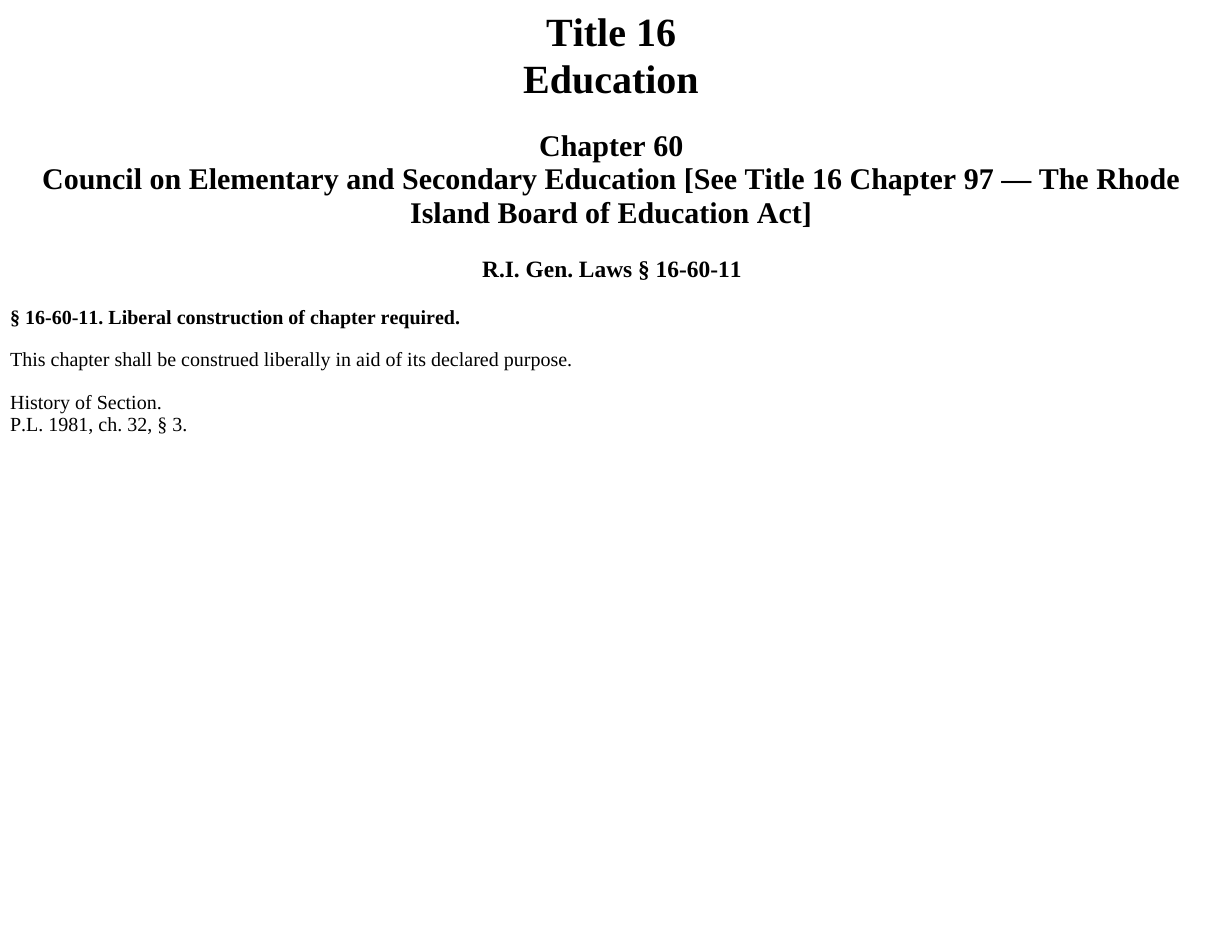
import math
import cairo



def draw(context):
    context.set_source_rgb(1, 1, 1)
    context.paint()
    context.select_font_face("Liberation Serif", cairo.FontSlant.NORMAL, cairo.FontWeight.BOLD)
    context.set_font_size(40)
    context.set_source_rgb(0, 0, 0)
    context.move_to(546, 46)
    context.show_text("Title 16")
    context.move_to(523, 93)
    context.show_text("Education")
    context.set_font_size(30)
    context.move_to(539, 156)
    context.show_text("Chapter 60")
    context.move_to(42, 189)
    context.show_text("Council on Elementary and Secondary Education [See Title 16 Chapter 97 — The Rhode")
    context.move_to(410, 223)
    context.show_text("Island Board of Education Act]")
    context.set_font_size(23.4)
    context.move_to(482, 277)
    context.show_text("R.I. Gen. Laws § 16-60-11")
    context.set_font_size(20)
    context.move_to(10, 324)
    context.show_text("§ 16-60-11. Liberal construction of chapter required.")
    context.select_font_face("Liberation Serif")
    context.move_to(10, 366)
    context.show_text("This chapter shall be construed liberally in aid of its declared purpose.")
    context.move_to(10, 409)
    context.show_text("History of Section.")
    context.move_to(10, 431)
    context.show_text("P.L. 1981, ch. 32, § 3.")


surface = cairo.ImageSurface(cairo.Format.RGB24, 1222, 938)
context = cairo.Context(surface)
options = cairo.FontOptions()
options.set_hint_metrics(cairo.HintMetrics.OFF)
options.set_hint_style(cairo.HintStyle.NONE)
context.set_font_options(options)
context.set_miter_limit(4)
draw(context)
surface.write_to_png("out.png")
